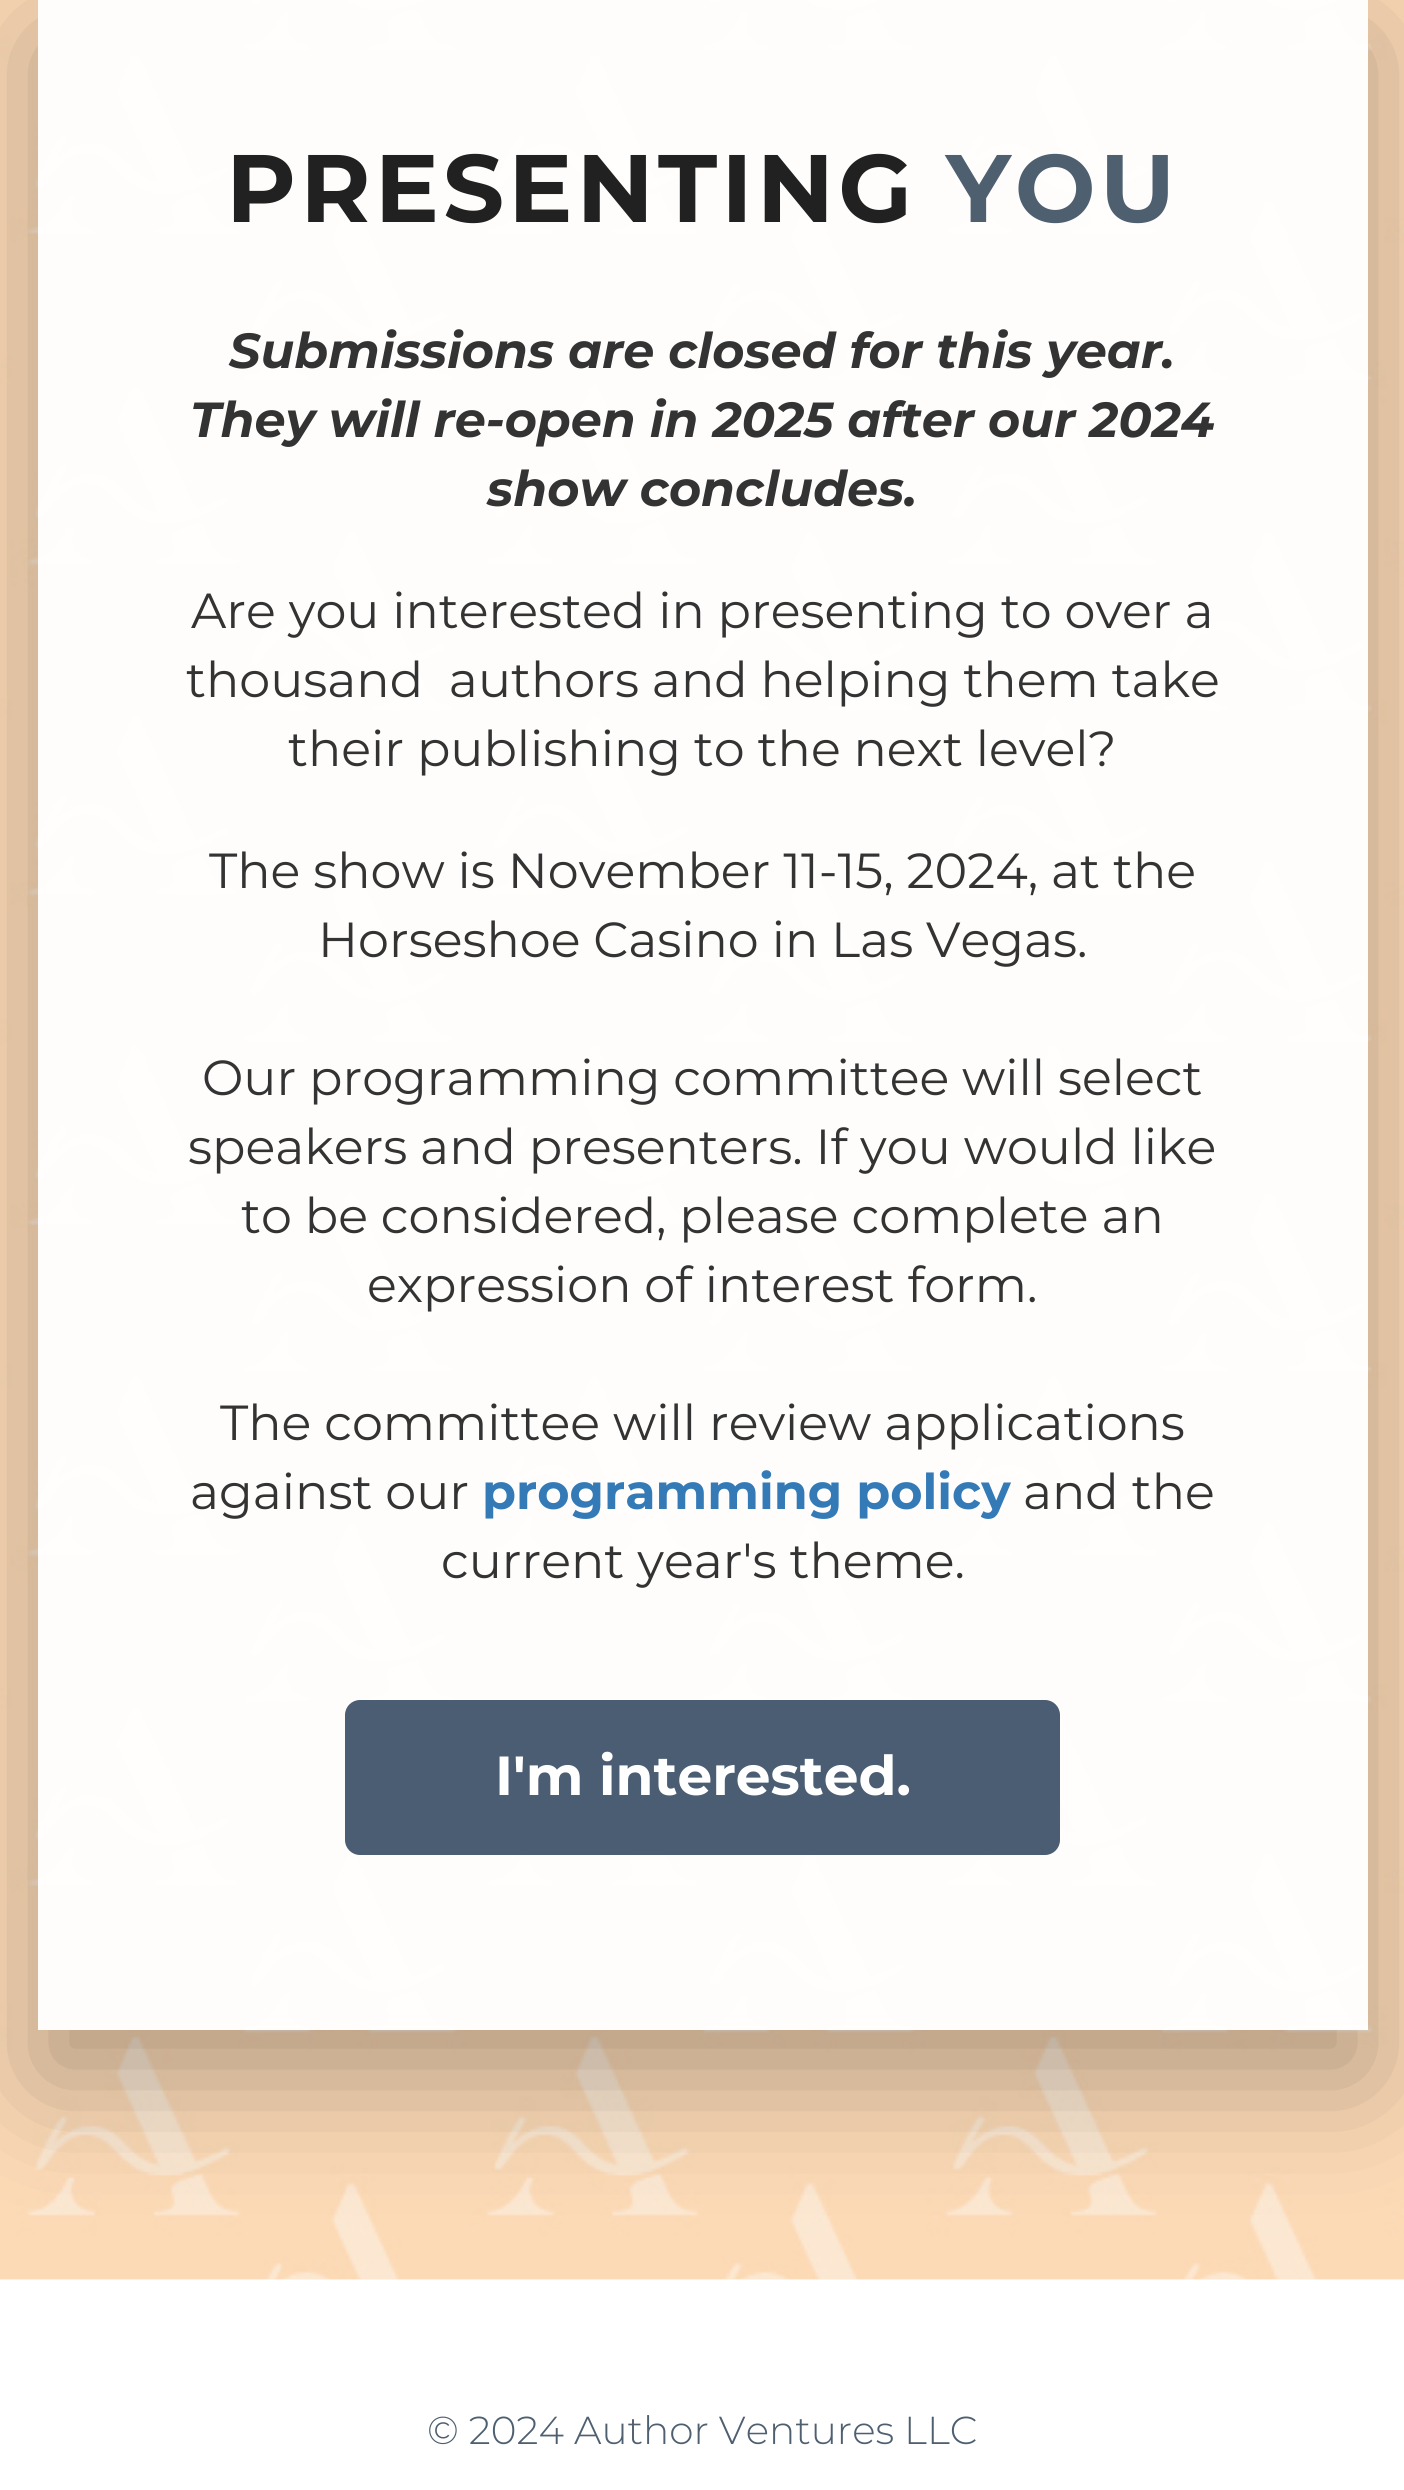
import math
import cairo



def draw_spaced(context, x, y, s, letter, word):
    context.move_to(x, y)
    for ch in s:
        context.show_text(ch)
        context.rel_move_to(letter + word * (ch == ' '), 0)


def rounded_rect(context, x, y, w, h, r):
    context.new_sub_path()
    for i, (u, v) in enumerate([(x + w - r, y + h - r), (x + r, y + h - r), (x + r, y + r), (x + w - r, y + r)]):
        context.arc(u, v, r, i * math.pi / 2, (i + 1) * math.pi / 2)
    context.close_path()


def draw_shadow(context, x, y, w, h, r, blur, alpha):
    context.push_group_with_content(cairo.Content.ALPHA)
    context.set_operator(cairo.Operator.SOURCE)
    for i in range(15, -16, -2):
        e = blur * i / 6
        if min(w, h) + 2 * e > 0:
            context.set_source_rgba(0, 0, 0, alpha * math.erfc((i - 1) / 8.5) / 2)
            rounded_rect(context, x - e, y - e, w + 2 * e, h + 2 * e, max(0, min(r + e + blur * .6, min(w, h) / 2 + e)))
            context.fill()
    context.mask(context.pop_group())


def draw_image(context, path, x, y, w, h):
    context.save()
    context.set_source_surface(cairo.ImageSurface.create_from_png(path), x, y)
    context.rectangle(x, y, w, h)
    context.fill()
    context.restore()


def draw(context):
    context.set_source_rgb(1, 1, 1)
    context.paint()
    context.set_source_rgb(252 / 255, 248 / 255, 241 / 255)
    context.rectangle(0, 2279, 1404, 1)
    context.fill()
    draw_image(context, "images/1.png", 0, 0, 1404, 2280)
    context.save()
    context.set_fill_rule(cairo.FillRule.EVEN_ODD)
    context.new_path()
    context.move_to(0, 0)
    context.line_to(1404, 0)
    context.line_to(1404, 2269)
    context.line_to(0, 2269)
    context.close_path()
    context.move_to(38, -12)
    context.line_to(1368, -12)
    context.line_to(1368, 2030)
    context.line_to(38, 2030)
    context.close_path()
    context.clip()
    context.set_source_rgb(0, 0, 0)
    draw_shadow(context, 38, 38, 1330, 2042, 0, 62.5, 0.3)
    context.restore()
    context.set_source_rgba(1, 1, 1, 0.95)
    context.rectangle(38, 0, 1330, 2030)
    context.fill()
    context.set_source_rgb(75 / 255, 93 / 255, 115 / 255)
    rounded_rect(context, 345, 1700, 715, 155, 15)
    context.fill()
    context.select_font_face("Montserrat", cairo.FontSlant.NORMAL, cairo.FontWeight.BOLD)
    context.set_font_size(95.75)
    context.set_source_rgb(33 / 255, 33 / 255, 33 / 255)
    draw_spaced(context, 226, 222, "PRESENTING", 4.1, 0)
    context.set_source_rgb(78 / 255, 95 / 255, 112 / 255)
    draw_spaced(context, 946, 222, "YOU", 4.1, 0)
    context.select_font_face("Montserrat", cairo.FontSlant.ITALIC, cairo.FontWeight.BOLD)
    context.set_font_size(49.25)
    context.set_source_rgb(51 / 255, 51 / 255, 51 / 255)
    context.move_to(229, 368)
    context.show_text("Submissions are closed for this year.")
    context.move_to(190, 437)
    context.show_text("They will re-open in 2025 after our 2024")
    context.move_to(487, 506)
    context.show_text("show concludes.")
    context.select_font_face("Montserrat")
    context.move_to(191, 628)
    context.show_text("Are you interested in presenting to over a")
    context.move_to(186, 697)
    context.show_text("thousand  authors and helping them take")
    context.move_to(288, 766)
    context.show_text("their publishing to the next level?")
    context.move_to(209, 888)
    context.show_text("The show is November 11-15, 2024, at the")
    context.move_to(318, 957)
    context.show_text("Horseshoe Casino in Las Vegas.")
    context.move_to(202, 1095)
    context.show_text("Our programming committee will select")
    context.move_to(188, 1164)
    context.show_text("speakers and presenters. If you would like")
    context.move_to(241, 1233)
    context.show_text("to be considered, please complete an")
    context.move_to(367, 1302)
    context.show_text("expression of interest form.")
    context.move_to(220, 1440)
    context.show_text("The committee will review applications")
    context.move_to(190, 1509)
    context.show_text("against our")
    context.select_font_face("Montserrat", cairo.FontSlant.NORMAL, cairo.FontWeight.BOLD)
    context.set_source_rgb(51 / 255, 122 / 255, 183 / 255)
    context.move_to(482, 1509)
    context.show_text("programming policy")
    context.select_font_face("Montserrat")
    context.set_source_rgb(51 / 255, 51 / 255, 51 / 255)
    context.move_to(1023, 1509)
    context.show_text("and the")
    context.move_to(441, 1578)
    context.show_text("current year's theme.")
    context.select_font_face("Montserrat", cairo.FontSlant.NORMAL, cairo.FontWeight.BOLD)
    context.set_font_size(55)
    context.set_source_rgb(1, 1, 1)
    context.move_to(495, 1795)
    context.show_text("I'm interested.")
    context.select_font_face("Montserrat Light")
    context.set_font_size(39)
    context.set_source_rgb(78 / 255, 95 / 255, 112 / 255)
    context.move_to(427, 2444)
    context.show_text("© 2024 Author Ventures LLC")


surface = cairo.ImageSurface(cairo.Format.RGB24, 1404, 2490)
context = cairo.Context(surface)
options = cairo.FontOptions()
options.set_hint_metrics(cairo.HintMetrics.OFF)
options.set_hint_style(cairo.HintStyle.NONE)
context.set_font_options(options)
context.set_miter_limit(4)
draw(context)
surface.write_to_png("out.png")
